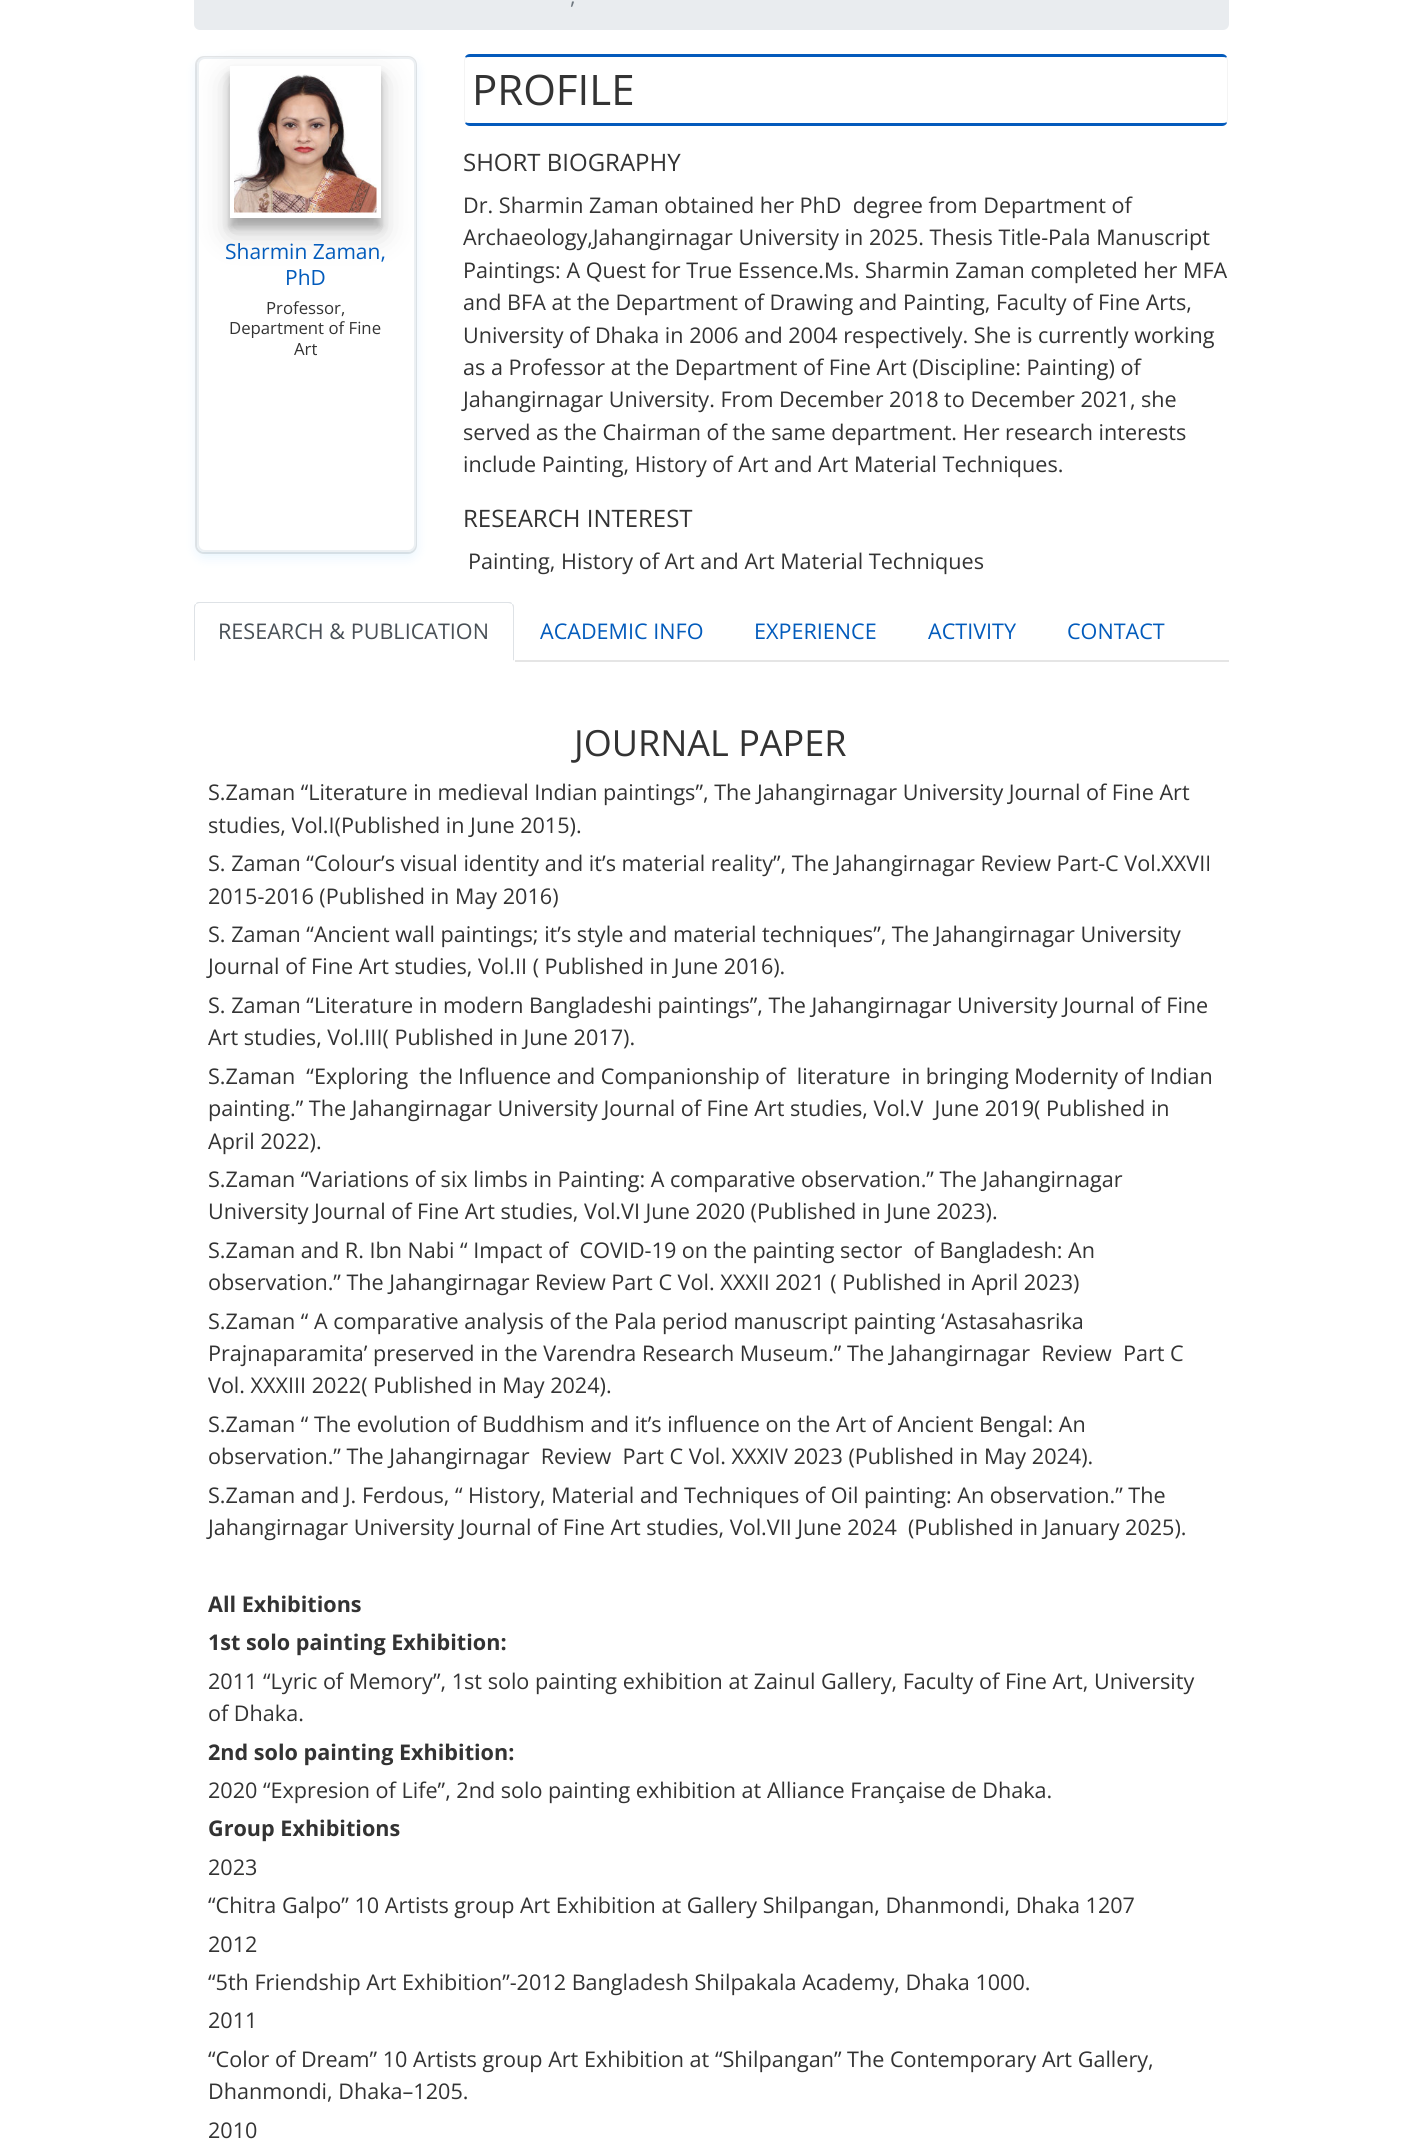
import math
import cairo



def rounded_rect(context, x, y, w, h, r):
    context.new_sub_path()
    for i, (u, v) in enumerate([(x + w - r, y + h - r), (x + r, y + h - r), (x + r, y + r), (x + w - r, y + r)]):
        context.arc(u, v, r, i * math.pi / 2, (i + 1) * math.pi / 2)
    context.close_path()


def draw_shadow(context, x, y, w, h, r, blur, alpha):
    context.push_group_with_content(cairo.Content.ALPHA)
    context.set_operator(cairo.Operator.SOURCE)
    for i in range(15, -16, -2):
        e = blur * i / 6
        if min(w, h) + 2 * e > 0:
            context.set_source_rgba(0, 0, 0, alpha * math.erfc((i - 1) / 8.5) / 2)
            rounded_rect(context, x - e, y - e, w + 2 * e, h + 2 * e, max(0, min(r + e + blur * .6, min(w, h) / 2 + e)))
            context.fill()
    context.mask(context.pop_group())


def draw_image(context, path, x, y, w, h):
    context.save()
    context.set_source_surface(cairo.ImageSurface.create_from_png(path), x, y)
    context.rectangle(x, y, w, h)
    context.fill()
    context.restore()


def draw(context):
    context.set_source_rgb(1, 1, 1)
    context.paint()
    context.set_source_rgb(233 / 255, 236 / 255, 239 / 255)
    rounded_rect(context, 194, -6, 1035, 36, 6)
    context.fill()
    context.set_source_rgb(0, 147 / 255, 243 / 255)
    draw_shadow(context, 197, 62, 219, 495, 8, 6, 0.1)
    rounded_rect(context, 196, 57, 220, 496, 8)
    context.set_source_rgba(0, 0, 0, 0.1)
    context.stroke()
    context.set_source_rgb(1, 1, 1)
    rounded_rect(context, 198, 58, 217, 493, 7)
    context.fill_preserve()
    context.set_source_rgb(236 / 255, 240 / 255, 243 / 255)
    context.stroke()
    context.save()
    context.set_fill_rule(cairo.FillRule.EVEN_ODD)
    context.new_path()
    context.move_to(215, 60)
    context.line_to(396, 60)
    context.line_to(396, 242)
    context.line_to(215, 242)
    context.close_path()
    context.move_to(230, 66)
    context.line_to(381, 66)
    context.line_to(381, 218)
    context.line_to(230, 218)
    context.close_path()
    context.clip()
    context.set_source_rgb(0, 0, 0)
    draw_shadow(context, 230, 75, 151, 152, 0, 4.5, 0.23)
    context.restore()
    context.save()
    context.set_fill_rule(cairo.FillRule.EVEN_ODD)
    context.new_path()
    context.move_to(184, 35)
    context.line_to(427, 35)
    context.line_to(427, 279)
    context.line_to(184, 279)
    context.close_path()
    context.move_to(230, 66)
    context.line_to(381, 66)
    context.line_to(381, 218)
    context.line_to(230, 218)
    context.close_path()
    context.clip()
    context.set_source_rgb(0, 0, 0)
    draw_shadow(context, 230, 81, 151, 152, 0, 15, 0.19)
    context.restore()
    context.rectangle(232.5, 68.5, 146, 147)
    context.set_source_rgb(1, 1, 1)
    context.set_line_width(5)
    context.stroke()
    draw_image(context, "images/1.png", 234, 74, 143, 139)
    context.set_source_rgb(3 / 255, 90 / 255, 188 / 255)
    context.new_path()
    context.move_to(470, 54)
    context.curve_to(468, 54, 466, 55, 465, 57)
    context.line_to(466, 58)
    context.curve_to(466, 57, 468, 57, 470, 57)
    context.line_to(1222, 57)
    context.curve_to(1224, 57, 1226, 57, 1226, 58)
    context.line_to(1227, 57)
    context.curve_to(1226, 55, 1224, 54, 1222, 54)
    context.close_path()
    context.fill()
    context.set_source_rgb(244 / 255, 244 / 255, 244 / 255)
    context.new_path()
    context.move_to(1227, 57)
    context.line_to(1228, 60)
    context.line_to(1228, 120)
    context.line_to(1227, 123)
    context.line_to(1226, 122)
    context.line_to(1227, 120)
    context.line_to(1227, 60)
    context.line_to(1226, 58)
    context.close_path()
    context.fill()
    context.set_source_rgb(3 / 255, 90 / 255, 188 / 255)
    context.new_path()
    context.move_to(470, 126)
    context.line_to(1222, 126)
    context.curve_to(1224, 126, 1226, 125, 1227, 123)
    context.line_to(1226, 122)
    context.curve_to(1226, 123, 1224, 123, 1222, 123)
    context.line_to(470, 123)
    context.curve_to(468, 123, 466, 123, 466, 122)
    context.line_to(465, 123)
    context.curve_to(466, 125, 468, 126, 470, 126)
    context.close_path()
    context.fill()
    context.set_source_rgb(244 / 255, 244 / 255, 244 / 255)
    context.new_path()
    context.move_to(465, 57)
    context.line_to(464, 60)
    context.line_to(464, 120)
    context.line_to(465, 123)
    context.line_to(466, 122)
    context.line_to(465, 120)
    context.line_to(465, 60)
    context.line_to(466, 58)
    context.close_path()
    context.fill()
    context.set_source_rgb(229 / 255, 229 / 255, 229 / 255)
    context.rectangle(515, 660, 714, 2)
    context.fill()
    context.set_source_rgb(222 / 255, 226 / 255, 230 / 255)
    context.new_path()
    context.move_to(200, 602)
    context.curve_to(198, 602, 196, 602, 196, 604)
    context.curve_to(197, 604, 198, 603, 200, 603)
    context.line_to(508, 603)
    context.curve_to(510, 603, 511, 604, 512, 604)
    context.curve_to(512, 602, 510, 602, 508, 602)
    context.close_path()
    context.fill()
    context.new_path()
    context.move_to(514, 661)
    context.line_to(514, 608)
    context.curve_to(514, 606, 514, 604, 512, 604)
    context.curve_to(512, 605, 513, 606, 513, 608)
    context.line_to(513, 660)
    context.close_path()
    context.fill()
    context.set_source_rgb(1, 1, 1)
    context.new_path()
    context.move_to(194, 662)
    context.line_to(195, 660)
    context.line_to(513, 660)
    context.line_to(514, 661)
    context.line_to(514, 662)
    context.close_path()
    context.fill()
    context.set_source_rgb(222 / 255, 226 / 255, 230 / 255)
    context.new_path()
    context.move_to(196, 604)
    context.curve_to(194, 604, 194, 606, 194, 608)
    context.line_to(194, 661)
    context.line_to(195, 660)
    context.line_to(195, 608)
    context.curve_to(195, 606, 196, 605, 196, 604)
    context.close_path()
    context.fill()
    context.select_font_face("Open Sans")
    context.set_font_size(21.6)
    context.set_source_rgb(108 / 255, 117 / 255, 125 / 255)
    context.move_to(570, 4)
    context.show_text(",")
    context.set_font_size(21)
    context.set_source_rgb(2 / 255, 91 / 255, 188 / 255)
    context.move_to(225, 259)
    context.show_text("Sharmin Zaman,")
    context.move_to(285, 285)
    context.show_text("PhD")
    context.set_font_size(16.75)
    context.set_source_rgb(51 / 255, 51 / 255, 51 / 255)
    context.move_to(266, 314)
    context.show_text("Professor,")
    context.move_to(229, 334)
    context.show_text("Department of Fine")
    context.move_to(294, 355)
    context.show_text("Art")
    context.set_font_size(42)
    context.move_to(472, 105)
    context.show_text("PROFILE")
    context.set_font_size(24)
    context.move_to(463, 171)
    context.show_text("SHORT BIOGRAPHY")
    context.set_font_size(21.6)
    context.move_to(463, 213)
    context.show_text("Dr. Sharmin Zaman obtained her PhD  degree from Department of")
    context.move_to(463, 245)
    context.show_text("Archaeology,Jahangirnagar University in 2025. Thesis Title-Pala Manuscript")
    context.move_to(463, 278)
    context.show_text("Paintings: A Quest for True Essence.Ms. Sharmin Zaman completed her MFA")
    context.move_to(463, 310)
    context.show_text("and BFA at the Department of Drawing and Painting, Faculty of Fine Arts,")
    context.move_to(463, 343)
    context.show_text("University of Dhaka in 2006 and 2004 respectively. She is currently working")
    context.move_to(463, 375)
    context.show_text("as a Professor at the Department of Fine Art (Discipline: Painting) of")
    context.move_to(463, 407)
    context.show_text("Jahangirnagar University. From December 2018 to December 2021, she")
    context.move_to(463, 440)
    context.show_text("served as the Chairman of the same department. Her research interests")
    context.move_to(463, 472)
    context.show_text("include Painting, History of Art and Art Material Techniques.")
    context.set_font_size(24)
    context.move_to(463, 527)
    context.show_text("RESEARCH INTEREST")
    context.set_font_size(21.6)
    context.move_to(468, 569)
    context.show_text("Painting, History of Art and Art Material Techniques")
    context.set_source_rgb(73 / 255, 80 / 255, 87 / 255)
    context.move_to(218, 639)
    context.show_text("RESEARCH & PUBLICATION")
    context.set_source_rgb(2 / 255, 91 / 255, 188 / 255)
    context.move_to(540, 639)
    context.show_text("ACADEMIC INFO")
    context.move_to(754, 639)
    context.show_text("EXPERIENCE")
    context.move_to(928, 639)
    context.show_text("ACTIVITY")
    context.move_to(1067, 639)
    context.show_text("CONTACT")
    context.set_font_size(36)
    context.set_source_rgb(51 / 255, 51 / 255, 51 / 255)
    context.move_to(574, 756)
    context.show_text("JOURNAL PAPER")
    context.set_font_size(21.6)
    context.move_to(208, 800)
    context.show_text("S.Zaman “Literature in medieval Indian paintings”, The Jahangirnagar University Journal of Fine Art")
    context.move_to(208, 833)
    context.show_text("studies, Vol.I(Published in June 2015).")
    context.move_to(208, 871)
    context.show_text("S. Zaman “Colour’s visual identity and it’s material reality”, The Jahangirnagar Review Part-C Vol.XXVII")
    context.move_to(208, 904)
    context.show_text("2015-2016 (Published in May 2016)")
    context.move_to(208, 942)
    context.show_text("S. Zaman “Ancient wall paintings; it’s style and material techniques”, The Jahangirnagar University")
    context.move_to(208, 974)
    context.show_text("Journal of Fine Art studies, Vol.II ( Published in June 2016).")
    context.move_to(208, 1013)
    context.show_text("S. Zaman “Literature in modern Bangladeshi paintings”, The Jahangirnagar University Journal of Fine")
    context.move_to(208, 1045)
    context.show_text("Art studies, Vol.III( Published in June 2017).")
    context.move_to(208, 1084)
    context.show_text("S.Zaman  “Exploring  the Influence and Companionship of  literature  in bringing Modernity of Indian")
    context.move_to(208, 1116)
    context.show_text("painting.” The Jahangirnagar University Journal of Fine Art studies, Vol.V  June 2019( Published in")
    context.move_to(208, 1149)
    context.show_text("April 2022).")
    context.move_to(208, 1187)
    context.show_text("S.Zaman “Variations of six limbs in Painting: A comparative observation.” The Jahangirnagar")
    context.move_to(208, 1219)
    context.show_text("University Journal of Fine Art studies, Vol.VI June 2020 (Published in June 2023).")
    context.move_to(208, 1258)
    context.show_text("S.Zaman and R. Ibn Nabi “ Impact of  COVID-19 on the painting sector  of Bangladesh: An")
    context.move_to(208, 1290)
    context.show_text("observation.” The Jahangirnagar Review Part C Vol. XXXII 2021 ( Published in April 2023)")
    context.move_to(208, 1329)
    context.show_text("S.Zaman “ A comparative analysis of the Pala period manuscript painting ‘Astasahasrika")
    context.move_to(208, 1361)
    context.show_text("Prajnaparamita’ preserved in the Varendra Research Museum.” The Jahangirnagar  Review  Part C")
    context.move_to(208, 1393)
    context.show_text("Vol. XXXIII 2022( Published in May 2024).")
    context.move_to(208, 1432)
    context.show_text("S.Zaman “ The evolution of Buddhism and it’s influence on the Art of Ancient Bengal: An")
    context.move_to(208, 1464)
    context.show_text("observation.” The Jahangirnagar  Review  Part C Vol. XXXIV 2023 (Published in May 2024).")
    context.move_to(208, 1503)
    context.show_text("S.Zaman and J. Ferdous, “ History, Material and Techniques of Oil painting: An observation.” The")
    context.move_to(208, 1535)
    context.show_text("Jahangirnagar University Journal of Fine Art studies, Vol.VII June 2024  (Published in January 2025).")
    context.select_font_face("Open Sans", cairo.FontSlant.NORMAL, cairo.FontWeight.BOLD)
    context.move_to(208, 1612)
    context.show_text("All Exhibitions")
    context.move_to(208, 1650)
    context.show_text("1st solo painting Exhibition:")
    context.select_font_face("Open Sans")
    context.move_to(208, 1689)
    context.show_text("2011 “Lyric of Memory”, 1st solo painting exhibition at Zainul Gallery, Faculty of Fine Art, University")
    context.move_to(208, 1721)
    context.show_text("of Dhaka.")
    context.select_font_face("Open Sans", cairo.FontSlant.NORMAL, cairo.FontWeight.BOLD)
    context.move_to(208, 1760)
    context.show_text("2nd solo painting Exhibition:")
    context.select_font_face("Open Sans")
    context.move_to(208, 1798)
    context.show_text("2020 “Expresion of Life”, 2nd solo painting exhibition at Alliance Française de Dhaka.")
    context.select_font_face("Open Sans", cairo.FontSlant.NORMAL, cairo.FontWeight.BOLD)
    context.move_to(208, 1836)
    context.show_text("Group Exhibitions")
    context.select_font_face("Open Sans")
    context.move_to(208, 1875)
    context.show_text("2023")
    context.move_to(208, 1913)
    context.show_text("“Chitra Galpo” 10 Artists group Art Exhibition at Gallery Shilpangan, Dhanmondi, Dhaka 1207")
    context.move_to(208, 1952)
    context.show_text("2012")
    context.move_to(208, 1990)
    context.show_text("“5th Friendship Art Exhibition”-2012 Bangladesh Shilpakala Academy, Dhaka 1000.")
    context.move_to(208, 2028)
    context.show_text("2011")
    context.move_to(208, 2067)
    context.show_text("“Color of Dream” 10 Artists group Art Exhibition at “Shilpangan” The Contemporary Art Gallery,")
    context.move_to(208, 2099)
    context.show_text("Dhanmondi, Dhaka–1205.")
    context.move_to(208, 2138)
    context.show_text("2010")


surface = cairo.ImageSurface(cairo.Format.RGB24, 1420, 2146)
context = cairo.Context(surface)
options = cairo.FontOptions()
options.set_hint_metrics(cairo.HintMetrics.OFF)
options.set_hint_style(cairo.HintStyle.NONE)
context.set_font_options(options)
context.set_miter_limit(4)
draw(context)
surface.write_to_png("out.png")
